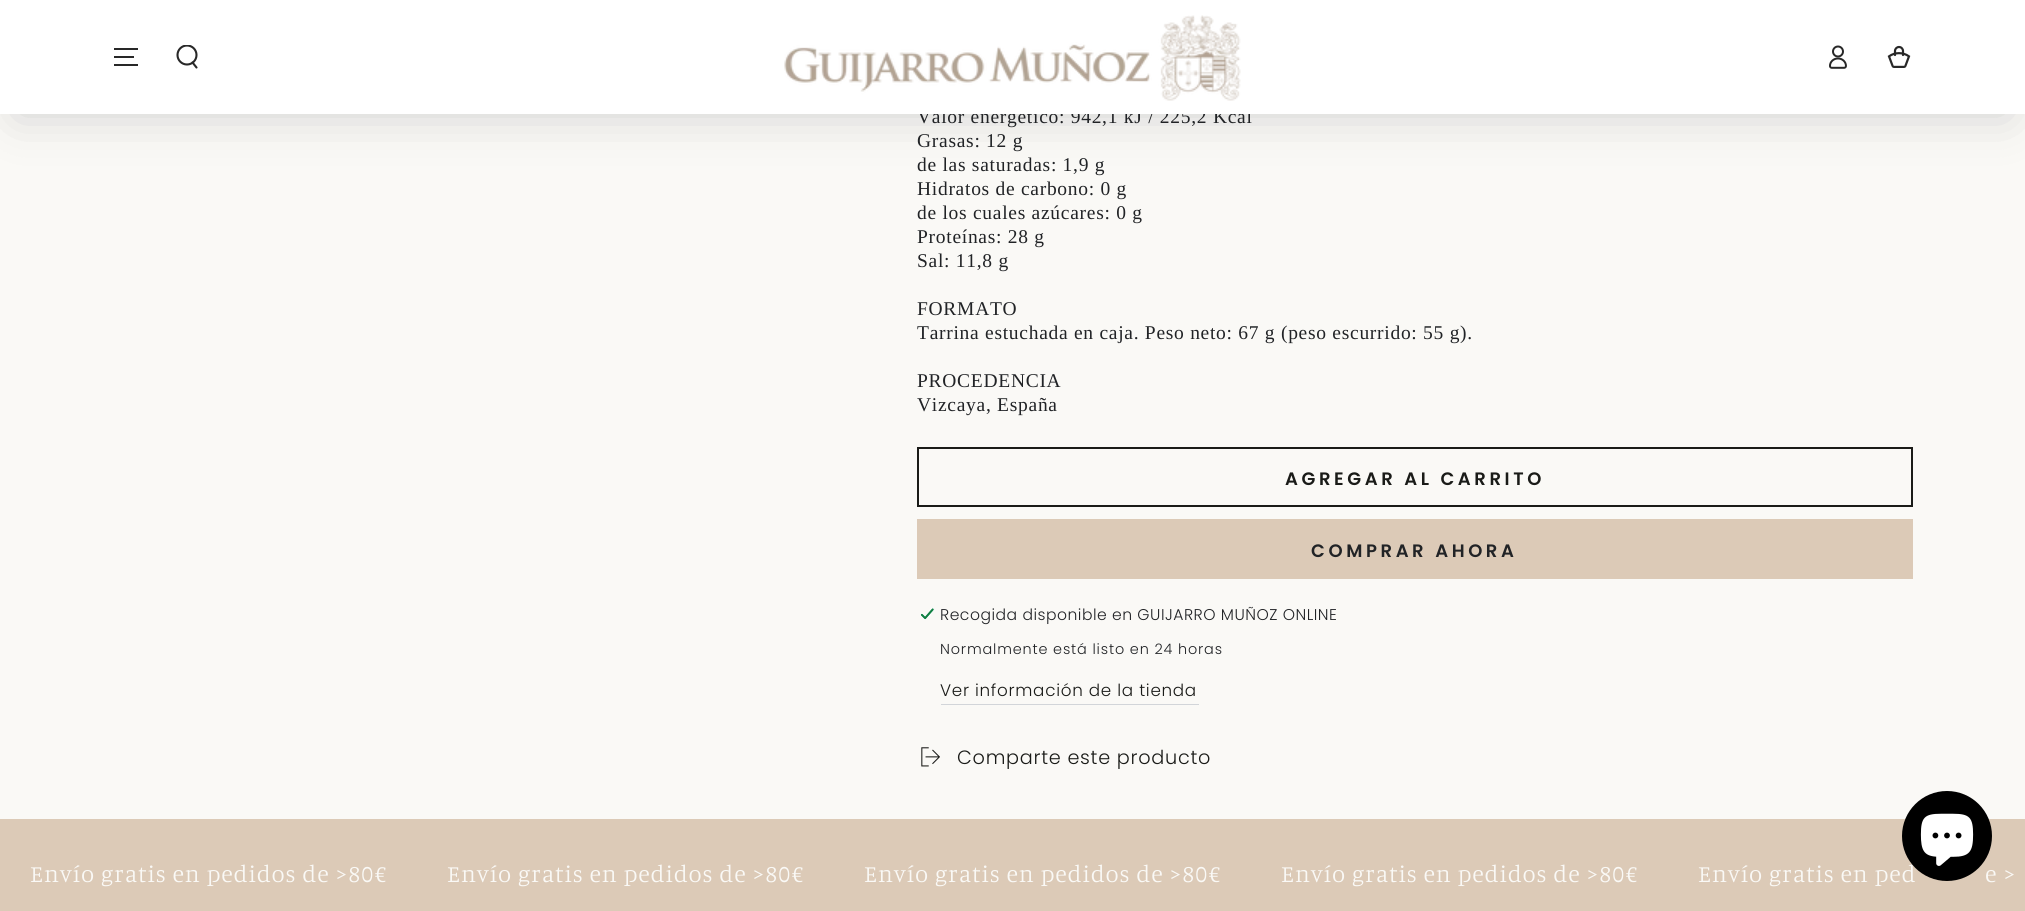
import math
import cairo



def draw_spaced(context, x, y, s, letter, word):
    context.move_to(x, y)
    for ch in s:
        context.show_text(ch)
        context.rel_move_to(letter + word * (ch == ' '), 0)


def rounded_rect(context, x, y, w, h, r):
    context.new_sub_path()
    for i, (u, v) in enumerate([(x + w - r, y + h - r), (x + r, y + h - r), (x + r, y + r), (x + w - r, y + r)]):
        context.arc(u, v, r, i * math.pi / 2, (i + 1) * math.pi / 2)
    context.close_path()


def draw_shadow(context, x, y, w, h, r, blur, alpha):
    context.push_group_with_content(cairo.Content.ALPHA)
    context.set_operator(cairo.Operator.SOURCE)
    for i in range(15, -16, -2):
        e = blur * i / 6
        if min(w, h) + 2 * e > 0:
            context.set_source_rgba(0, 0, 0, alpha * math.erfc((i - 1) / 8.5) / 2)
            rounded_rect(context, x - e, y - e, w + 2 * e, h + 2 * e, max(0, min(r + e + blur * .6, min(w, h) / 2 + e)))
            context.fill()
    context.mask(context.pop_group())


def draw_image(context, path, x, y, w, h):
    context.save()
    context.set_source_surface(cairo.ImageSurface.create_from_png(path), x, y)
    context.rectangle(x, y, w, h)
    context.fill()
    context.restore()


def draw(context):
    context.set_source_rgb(250 / 255, 249 / 255, 246 / 255)
    context.paint()
    context.set_source_rgb(33 / 255, 35 / 255, 38 / 255)
    draw_shadow(context, 18, 90, 1989, 24, 12, 24, 0.2)
    context.rectangle(918, 448, 994, 58)
    context.set_source_rgb(26 / 255, 27 / 255, 24 / 255)
    context.stroke()
    context.set_source_rgb(220 / 255, 202 / 255, 183 / 255)
    context.rectangle(917, 519, 996, 60)
    context.fill()
    draw_image(context, "images/4.png", 920, 607, 15, 13)
    context.set_source_rgb(210 / 255, 213 / 255, 217 / 255)
    context.rectangle(941, 704, 258, 1)
    context.fill()
    draw_image(context, "images/5.png", 921, 747, 19, 20)
    context.set_source_rgb(220 / 255, 202 / 255, 183 / 255)
    context.rectangle(0, 819, 2025, 92)
    context.fill()
    context.select_font_face("Liberation Serif")
    context.set_font_size(19.5)
    context.set_source_rgb(33 / 255, 35 / 255, 38 / 255)
    draw_spaced(context, 917, 123, "Valor energético: 942,1 kJ / 225,2 Kcal", 0.72, 0)
    context.set_source_rgb(1, 1, 1)
    context.rectangle(0, 0, 2025, 114)
    context.fill()
    draw_image(context, "images/3.png", 1887, 45, 24, 23)
    draw_image(context, "images/2.png", 1829, 45, 18, 24)
    draw_image(context, "images/1.png", 784, 15, 457, 86)
    context.save()
    context.rectangle(176, 45, 24, 24)
    context.clip()
    context.arc(187, 55, 9.5, 0, 2 * math.pi)
    context.set_source_rgb(40 / 255, 40 / 255, 40 / 255)
    context.set_line_width(2.1)
    context.stroke()
    context.restore()
    context.new_path()
    context.move_to(192.5, 62.5)
    context.line_to(196.5, 67.5)
    context.set_source_rgb(40 / 255, 40 / 255, 40 / 255)
    context.set_line_width(2.1)
    context.set_line_cap(cairo.LineCap.ROUND)
    context.stroke()
    context.new_path()
    context.move_to(114, 65)
    context.line_to(138, 65)
    context.move_to(114, 57)
    context.line_to(134, 57)
    context.move_to(114, 49)
    context.line_to(138, 49)
    context.set_line_width(2)
    context.set_line_cap(cairo.LineCap.BUTT)
    context.stroke()
    context.set_source_rgb(33 / 255, 35 / 255, 38 / 255)
    draw_spaced(context, 917, 147, "Grasas: 12 g", 0.72, 0)
    draw_spaced(context, 917, 171, "de las saturadas: 1,9 g", 0.72, 0)
    draw_spaced(context, 917, 195, "Hidratos de carbono: 0 g", 0.72, 0)
    draw_spaced(context, 917, 219, "de los cuales azúcares: 0 g", 0.72, 0)
    draw_spaced(context, 917, 243, "Proteínas: 28 g", 0.72, 0)
    draw_spaced(context, 917, 267, "Sal: 11,8 g", 0.72, 0)
    draw_spaced(context, 917, 315, "FORMATO", 0.72, 0)
    draw_spaced(context, 917, 339, "Tarrina estuchada en caja. Peso neto: 67 g (peso escurrido: 55 g).", 0.72, 0)
    draw_spaced(context, 917, 387, "PROCEDENCIA", 0.72, 0)
    draw_spaced(context, 917, 411, "Vizcaya, España", 0.72, 0)
    context.select_font_face("Poppins SemiBold")
    context.set_font_size(18)
    context.set_source_rgb(26 / 255, 27 / 255, 24 / 255)
    draw_spaced(context, 1285, 485, "AGREGAR AL CARRITO", 3.6, 0)
    context.set_source_rgb(33 / 255, 35 / 255, 38 / 255)
    draw_spaced(context, 1311, 557, "COMPRAR AHORA", 3.6, 0)
    context.select_font_face("Poppins Light")
    context.set_font_size(15.6)
    draw_spaced(context, 940, 620, "Recogida disponible en GUIJARRO MUÑOZ ONLINE", 0.5, 0)
    context.set_font_size(14.4)
    draw_spaced(context, 940, 654, "Normalmente está listo en 24 horas", 0.85, 0)
    context.set_font_size(16.75)
    context.set_source_rgb(26 / 255, 27 / 255, 24 / 255)
    draw_spaced(context, 940, 696, "Ver información de la tienda", 0.72, 0)
    context.set_font_size(19.25)
    draw_spaced(context, 957, 764, "Comparte este producto", 0.72, 0)
    context.select_font_face("Manuale Light")
    context.set_font_size(24)
    context.set_source_rgb(250 / 255, 249 / 255, 246 / 255)
    draw_spaced(context, 30, 882, "Envío gratis en pedidos de >80€", 0.9, 0)
    draw_spaced(context, 447, 882, "Envío gratis en pedidos de >80€", 0.9, 0)
    draw_spaced(context, 864, 882, "Envío gratis en pedidos de >80€", 0.9, 0)
    draw_spaced(context, 1281, 882, "Envío gratis en pedidos de >80€", 0.9, 0)
    draw_spaced(context, 1698, 882, "Envío gratis en ped", 0.9, 0)
    draw_spaced(context, 1985, 882, "e >", 0.9, 0)
    context.set_source_rgb(0, 0, 0)
    context.new_path()
    context.arc(1947, 836, 45, 0, 2 * math.pi)
    context.fill()
    draw_image(context, "images/6.png", 1920, 813, 54, 53)


surface = cairo.ImageSurface(cairo.Format.RGB24, 2025, 911)
context = cairo.Context(surface)
options = cairo.FontOptions()
options.set_hint_metrics(cairo.HintMetrics.OFF)
options.set_hint_style(cairo.HintStyle.NONE)
context.set_font_options(options)
context.set_miter_limit(4)
draw(context)
surface.write_to_png("out.png")
